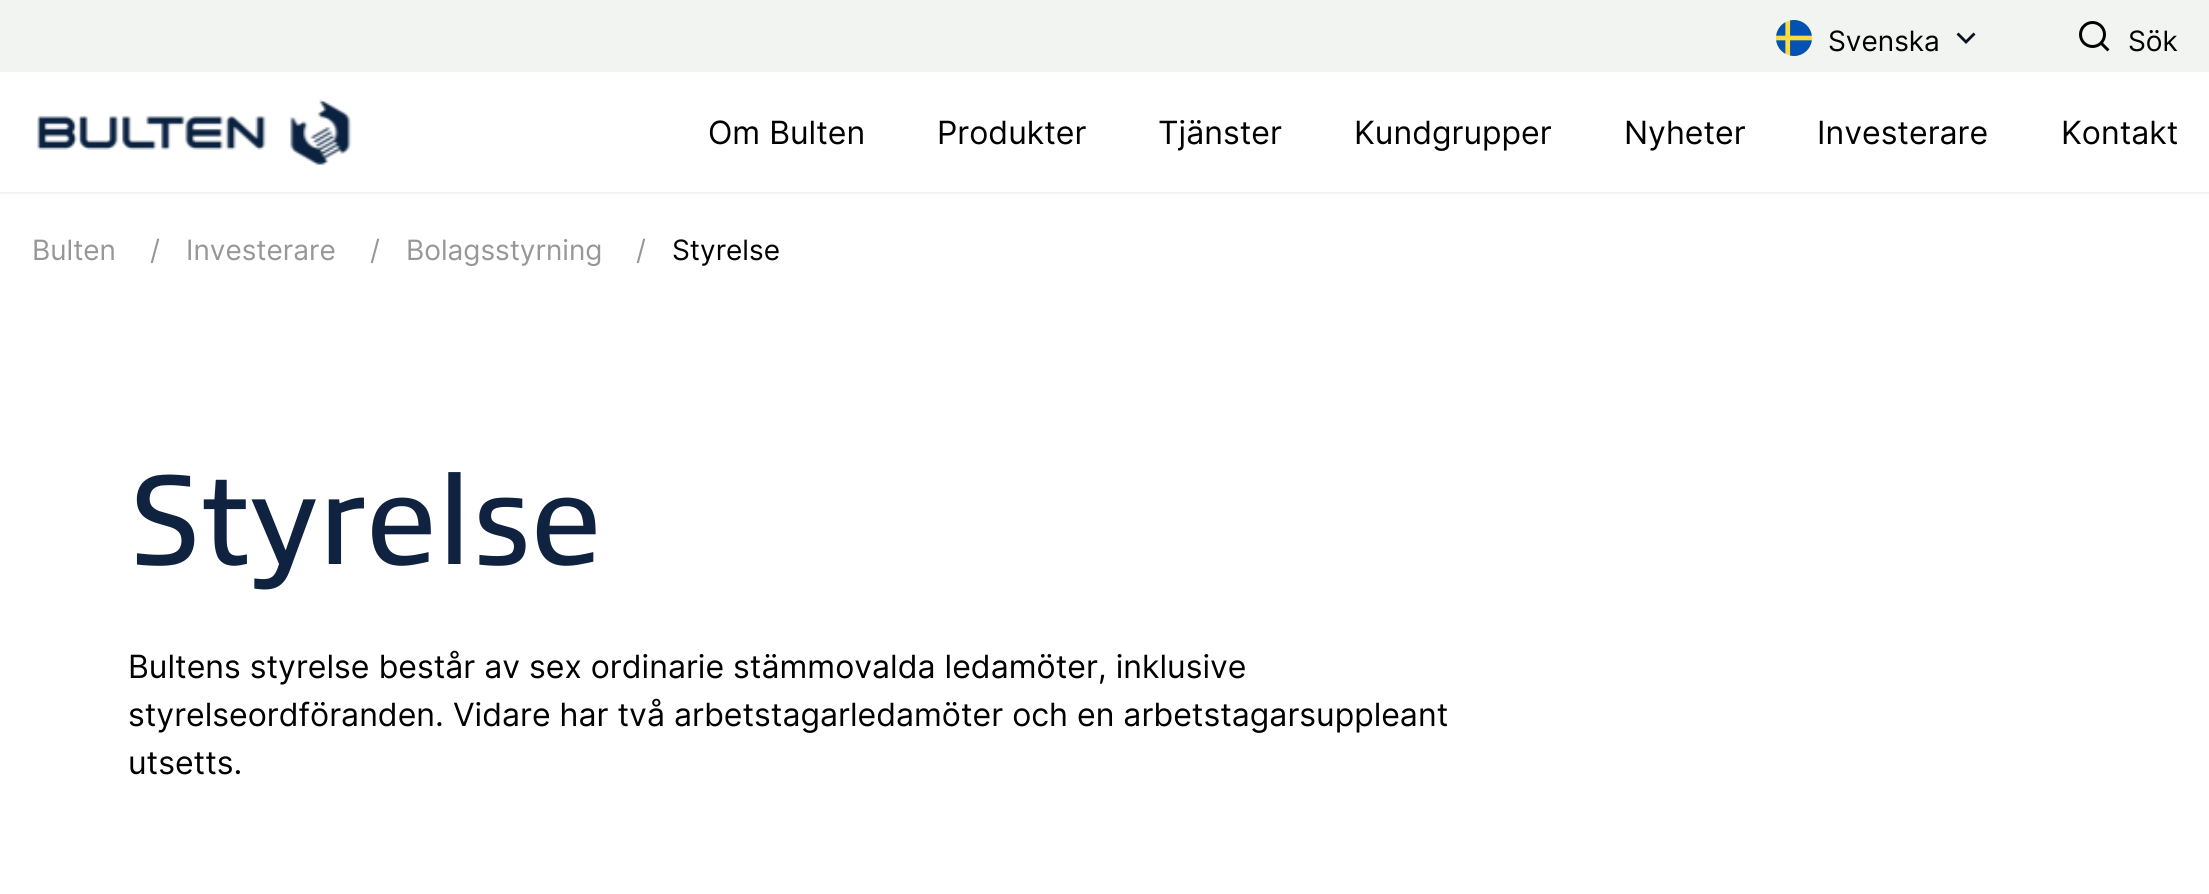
import math
import cairo



def draw_image(context, path, x, y, w, h):
    context.save()
    context.set_source_surface(cairo.ImageSurface.create_from_png(path), x, y)
    context.rectangle(x, y, w, h)
    context.fill()
    context.restore()


def draw(context):
    context.set_source_rgb(1, 1, 1)
    context.paint()
    context.set_source_rgb(242 / 255, 244 / 255, 241 / 255)
    context.rectangle(0, 192, 2209, 2)
    context.fill()
    context.rectangle(0, 0, 2209, 72)
    context.fill()
    draw_image(context, "images/1.png", 1776, 20, 36, 36)
    context.set_source_rgb(9 / 255, 18 / 255, 31 / 255)
    context.new_path()
    context.move_to(1966, 40)
    context.line_to(1973.5, 32.5)
    context.line_to(1975.5, 34.5)
    context.line_to(1966, 44)
    context.line_to(1956.5, 34.5)
    context.line_to(1958.5, 32.5)
    context.close_path()
    context.fill()
    draw_image(context, "images/2.png", 2079, 21, 31, 31)
    draw_image(context, "images/3.png", 37, 99, 315, 66)
    context.select_font_face("Inter")
    context.set_font_size(28)
    context.set_source_rgb(0, 0, 0)
    context.move_to(1828, 51)
    context.show_text("Svenska")
    context.move_to(2128, 51)
    context.show_text("Sök")
    context.set_font_size(32)
    context.move_to(708, 144)
    context.show_text("Om Bulten")
    context.move_to(937, 144)
    context.show_text("Produkter")
    context.move_to(1158, 144)
    context.show_text("Tjänster")
    context.move_to(1354, 144)
    context.show_text("Kundgrupper")
    context.move_to(1624, 144)
    context.show_text("Nyheter")
    context.move_to(1817, 144)
    context.show_text("Investerare")
    context.move_to(2061, 144)
    context.show_text("Kontakt")
    context.set_font_size(28)
    context.set_source_rgb(151 / 255, 151 / 255, 151 / 255)
    context.move_to(32, 260)
    context.show_text("Bulten")
    context.move_to(150, 260)
    context.show_text("/")
    context.move_to(186, 260)
    context.show_text("Investerare")
    context.move_to(370, 260)
    context.show_text("/")
    context.move_to(406, 260)
    context.show_text("Bolagsstyrning")
    context.move_to(636, 260)
    context.show_text("/")
    context.set_source_rgb(0, 0, 0)
    context.move_to(672, 260)
    context.show_text("Styrelse")
    context.select_font_face("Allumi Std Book")
    context.set_font_size(128)
    context.set_source_rgb(15 / 255, 34 / 255, 64 / 255)
    context.move_to(128, 564)
    context.show_text("Styrelse")
    context.select_font_face("Inter")
    context.set_font_size(32)
    context.set_source_rgb(0, 0, 0)
    context.move_to(128, 678)
    context.show_text("Bultens styrelse består av sex ordinarie stämmovalda ledamöter, inklusive")
    context.move_to(128, 726)
    context.show_text("styrelseordföranden. Vidare har två arbetstagarledamöter och en arbetstagarsuppleant")
    context.move_to(128, 774)
    context.show_text("utsetts.")


surface = cairo.ImageSurface(cairo.Format.RGB24, 2209, 894)
context = cairo.Context(surface)
options = cairo.FontOptions()
options.set_hint_metrics(cairo.HintMetrics.OFF)
options.set_hint_style(cairo.HintStyle.NONE)
context.set_font_options(options)
context.set_miter_limit(4)
draw(context)
surface.write_to_png("out.png")
